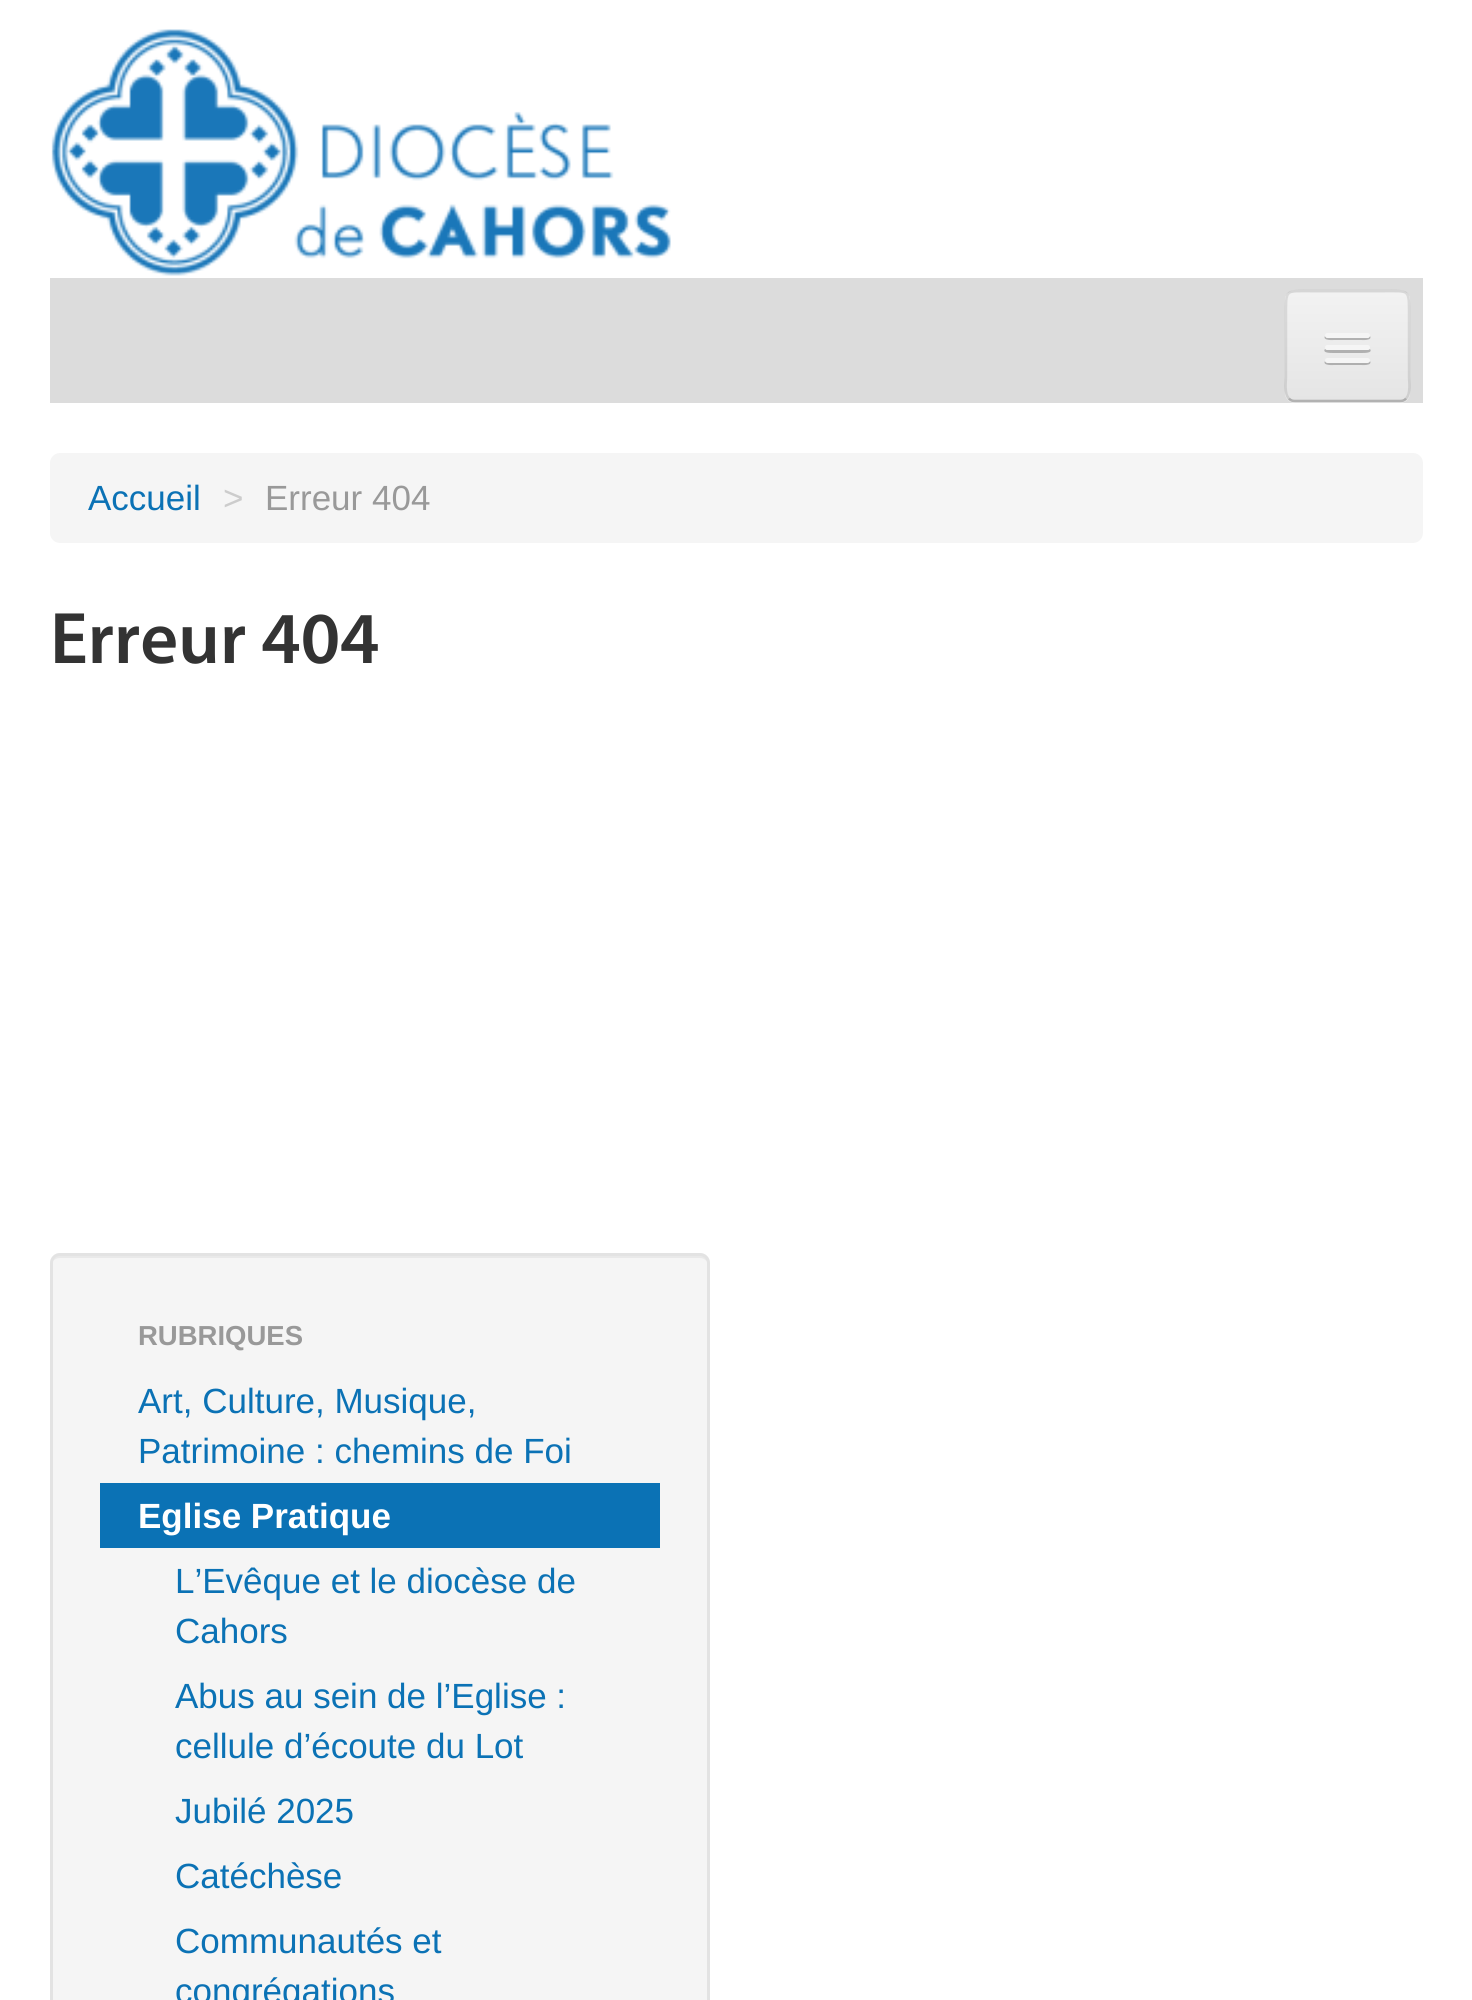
import math
import cairo



def rounded_rect(context, x, y, w, h, r):
    context.new_sub_path()
    for i, (u, v) in enumerate([(x + w - r, y + h - r), (x + r, y + h - r), (x + r, y + r), (x + w - r, y + r)]):
        context.arc(u, v, r, i * math.pi / 2, (i + 1) * math.pi / 2)
    context.close_path()


def draw_image(context, path, x, y, w, h):
    context.save()
    context.set_source_surface(cairo.ImageSurface.create_from_png(path), x, y)
    context.rectangle(x, y, w, h)
    context.fill()
    context.restore()


def draw(context):
    context.set_source_rgb(1, 1, 1)
    context.paint()
    draw_image(context, "images/1.png", 51, 29, 620, 247)
    context.set_source_rgb(220 / 255, 220 / 255, 220 / 255)
    context.rectangle(50, 278, 1373, 125)
    context.fill()
    context.set_source_rgb(237 / 255, 237 / 255, 237 / 255)
    rounded_rect(context, 1285, 290, 125, 113, 10)
    context.fill()
    context.save()
    rounded_rect(context, 1285, 290, 125, 113, 10)
    context.clip()
    gradient = cairo.LinearGradient(1348, 293, 1348, 400)
    gradient.add_color_stop_rgba(0, 242 / 255, 242 / 255, 242 / 255, 1)
    gradient.add_color_stop_rgba(1, 229 / 255, 229 / 255, 229 / 255, 1)
    context.set_source(gradient)
    context.rectangle(1285, 293, 125, 107)
    context.fill()
    context.restore()
    context.new_path()
    context.move_to(1406, 398.5)
    context.curve_to(1404.5, 400.5, 1402.5, 401, 1400, 401)
    context.line_to(1295, 401)
    context.curve_to(1292.5, 401, 1290.5, 400.5, 1289, 398.5)
    context.set_source_rgba(0, 0, 0, 0.25)
    context.set_line_width(2.5)
    context.stroke()
    context.new_path()
    context.move_to(1289, 398.5)
    context.curve_to(1284, 393.5, 1286, 381.5, 1286, 377)
    context.line_to(1286, 315.5)
    context.curve_to(1286, 288.5, 1285, 291, 1312.5, 291)
    context.line_to(1382.5, 291)
    context.curve_to(1410, 291, 1409, 288.5, 1409, 315.5)
    context.line_to(1409, 377)
    context.curve_to(1409, 381.5, 1411, 393.5, 1406, 398.5)
    context.set_source_rgba(0, 0, 0, 0.1)
    context.stroke()
    context.set_source_rgb(177 / 255, 177 / 255, 177 / 255)
    context.new_path()
    context.move_to(1325, 336)
    context.curve_to(1322, 341, 1334, 340, 1334, 340)
    context.line_to(1361, 340)
    context.curve_to(1361, 340, 1373, 341, 1370, 336)
    context.curve_to(1369, 337, 1368, 338, 1368, 338)
    context.line_to(1328, 338)
    context.curve_to(1327, 338, 1326, 337, 1325, 336)
    context.close_path()
    context.fill()
    context.set_source_rgb(245 / 255, 245 / 255, 245 / 255)
    rounded_rect(context, 1325, 333, 45, 5, 2.5)
    context.fill()
    context.set_source_rgb(176 / 255, 176 / 255, 176 / 255)
    context.new_path()
    context.move_to(1325, 349)
    context.curve_to(1322, 353, 1330, 353, 1334, 353)
    context.line_to(1361, 353)
    context.curve_to(1365, 353, 1373, 353, 1370, 349)
    context.line_to(1368, 350)
    context.line_to(1327, 350)
    context.close_path()
    context.fill()
    context.set_source_rgb(245 / 255, 245 / 255, 245 / 255)
    rounded_rect(context, 1325, 345, 45, 5, 2.5)
    context.fill()
    context.set_source_rgb(175 / 255, 175 / 255, 175 / 255)
    context.new_path()
    context.move_to(1325, 361)
    context.curve_to(1322, 366, 1334, 365, 1334, 365)
    context.line_to(1361, 365)
    context.curve_to(1361, 365, 1373, 366, 1370, 361)
    context.curve_to(1369, 362, 1368, 362, 1368, 362)
    context.line_to(1328, 362)
    context.curve_to(1327, 362, 1326, 362, 1325, 361)
    context.close_path()
    context.fill()
    context.set_source_rgb(245 / 255, 245 / 255, 245 / 255)
    rounded_rect(context, 1325, 358, 45, 5, 2.5)
    context.fill()
    rounded_rect(context, 50, 453, 1373, 90, 10)
    context.fill()
    rounded_rect(context, 50, 1253, 660, 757, 10)
    context.fill()
    context.set_source_rgb(233 / 255, 233 / 255, 233 / 255)
    context.new_path()
    context.move_to(60, 1258)
    context.line_to(700, 1258)
    context.curve_to(704, 1258, 708, 1261, 708, 1265)
    context.line_to(708, 1263)
    context.curve_to(708, 1259, 704, 1255, 700, 1255)
    context.line_to(61, 1255)
    context.curve_to(57, 1255, 54, 1258, 53, 1261)
    context.curve_to(55, 1259, 57, 1258, 60, 1258)
    context.close_path()
    context.fill()
    rounded_rect(context, 51.5, 1254.5, 657, 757, 8.5)
    context.set_source_rgb(227 / 255, 227 / 255, 227 / 255)
    context.set_line_width(3)
    context.stroke()
    context.set_source_rgb(11 / 255, 114 / 255, 181 / 255)
    context.rectangle(100, 1483, 560, 65)
    context.fill()
    context.select_font_face("Liberation Sans")
    context.set_font_size(35)
    context.move_to(88, 510)
    context.show_text("Accueil")
    context.set_source_rgb(204 / 255, 204 / 255, 204 / 255)
    context.move_to(223, 510)
    context.show_text(">")
    context.set_source_rgb(153 / 255, 153 / 255, 153 / 255)
    context.move_to(265, 510)
    context.show_text("Erreur 404")
    context.select_font_face("Myriad SemiBold")
    context.set_font_size(73.5)
    context.set_source_rgb(51 / 255, 51 / 255, 51 / 255)
    context.move_to(50, 663)
    context.show_text("Erreur 404")
    context.select_font_face("Liberation Sans", cairo.FontSlant.NORMAL, cairo.FontWeight.BOLD)
    context.set_font_size(27.5)
    context.set_source_rgb(153 / 255, 153 / 255, 153 / 255)
    context.move_to(138, 1345)
    context.show_text("RUBRIQUES")
    context.select_font_face("Liberation Sans")
    context.set_font_size(35)
    context.set_source_rgb(11 / 255, 114 / 255, 181 / 255)
    context.move_to(138, 1413)
    context.show_text("Art, Culture, Musique,")
    context.move_to(138, 1463)
    context.show_text("Patrimoine : chemins de Foi")
    context.select_font_face("Liberation Sans", cairo.FontSlant.NORMAL, cairo.FontWeight.BOLD)
    context.set_source_rgb(1, 1, 1)
    context.move_to(138, 1528)
    context.show_text("Eglise Pratique")
    context.select_font_face("Liberation Sans")
    context.set_source_rgb(11 / 255, 114 / 255, 181 / 255)
    context.move_to(175, 1593)
    context.show_text("L’Evêque et le diocèse de")
    context.move_to(175, 1643)
    context.show_text("Cahors")
    context.move_to(175, 1708)
    context.show_text("Abus au sein de l’Eglise :")
    context.move_to(175, 1758)
    context.show_text("cellule d’écoute du Lot")
    context.move_to(175, 1823)
    context.show_text("Jubilé 2025")
    context.move_to(175, 1888)
    context.show_text("Catéchèse")
    context.move_to(175, 1953)
    context.show_text("Communautés et")
    context.move_to(175, 2003)
    context.show_text("congrégations")


surface = cairo.ImageSurface(cairo.Format.RGB24, 1472, 2000)
context = cairo.Context(surface)
options = cairo.FontOptions()
options.set_hint_metrics(cairo.HintMetrics.OFF)
options.set_hint_style(cairo.HintStyle.NONE)
context.set_font_options(options)
context.set_miter_limit(4)
draw(context)
surface.write_to_png("out.png")
